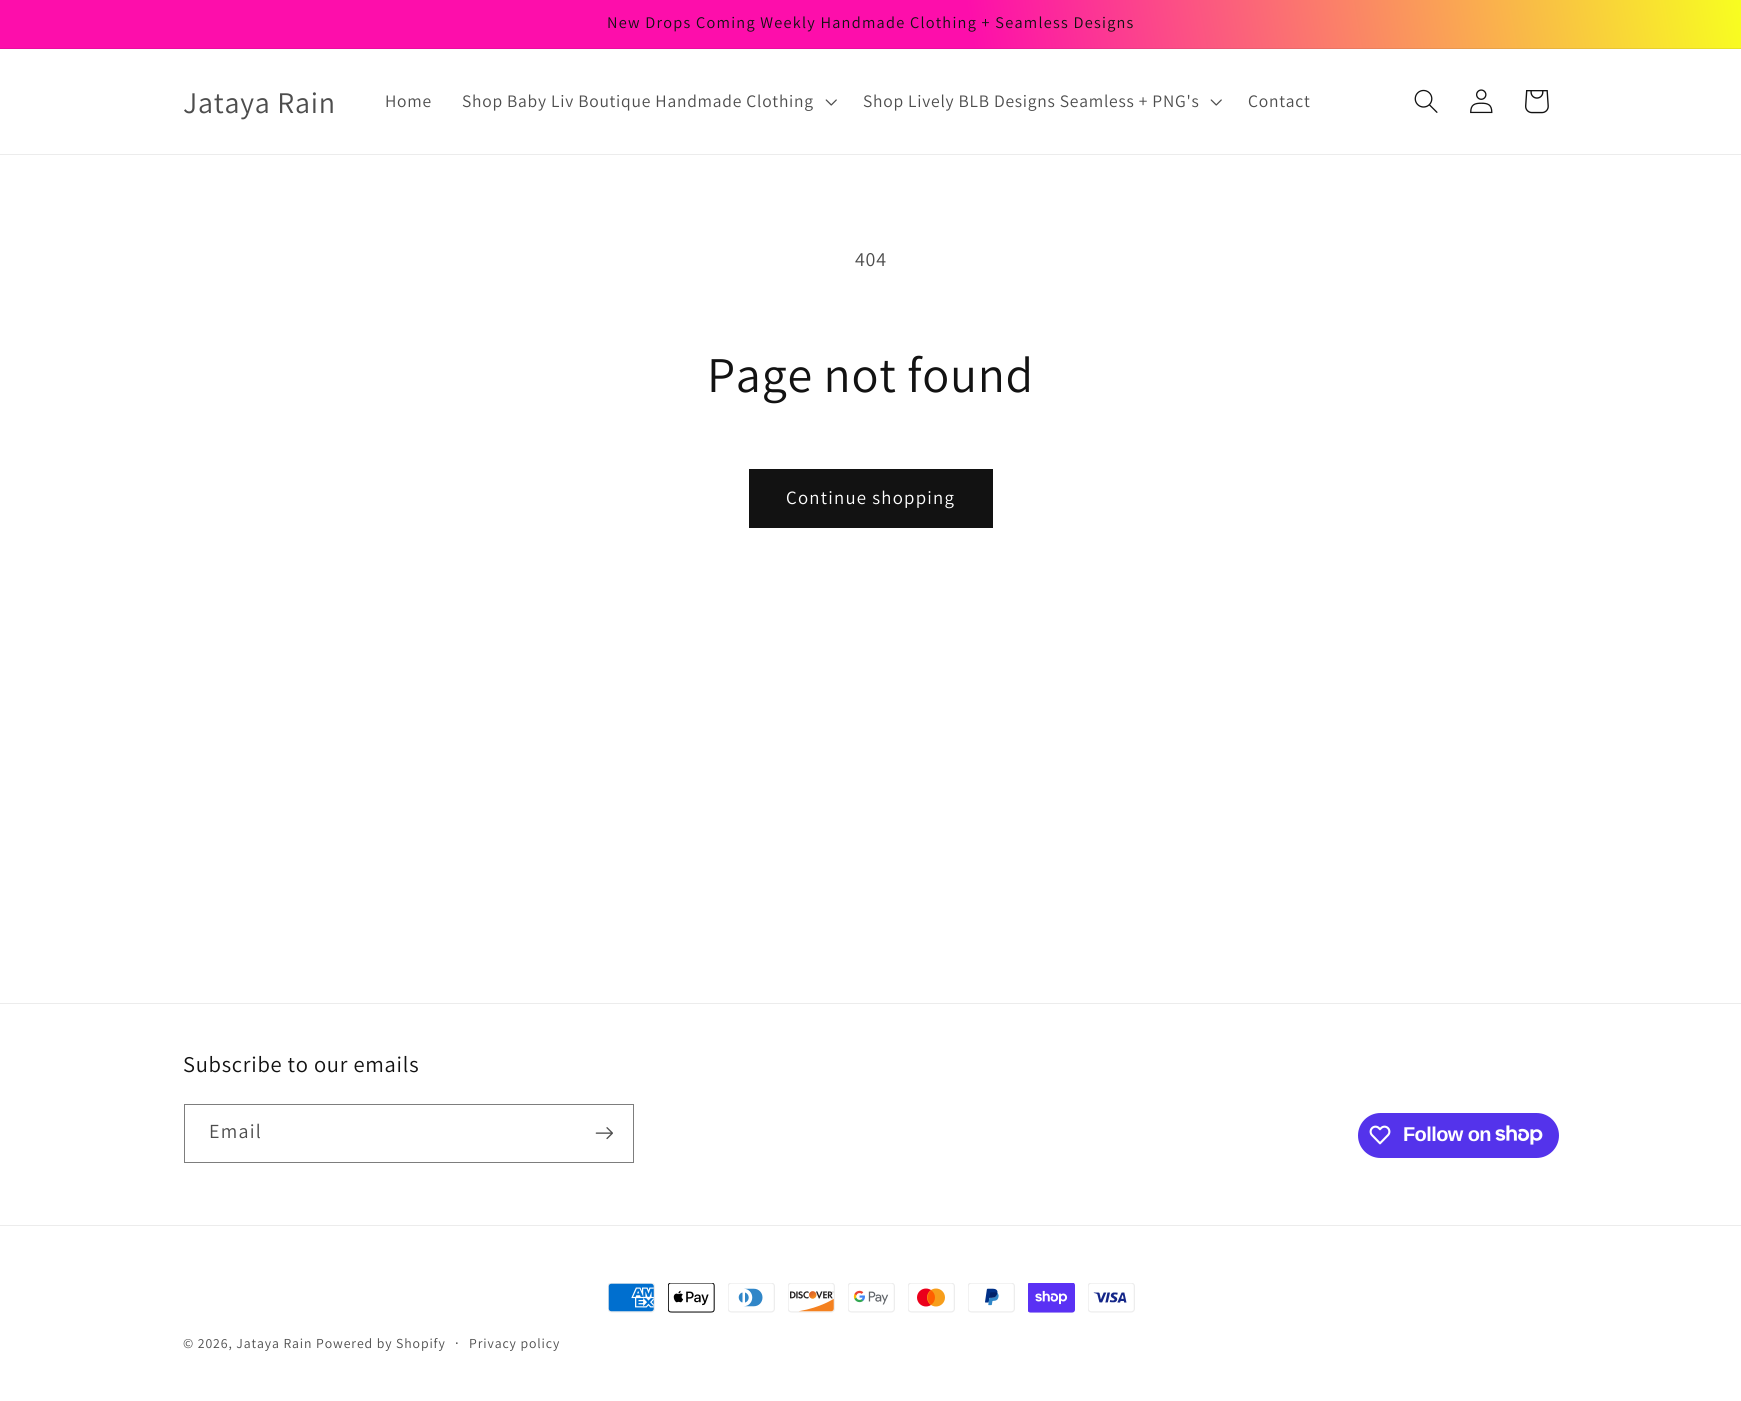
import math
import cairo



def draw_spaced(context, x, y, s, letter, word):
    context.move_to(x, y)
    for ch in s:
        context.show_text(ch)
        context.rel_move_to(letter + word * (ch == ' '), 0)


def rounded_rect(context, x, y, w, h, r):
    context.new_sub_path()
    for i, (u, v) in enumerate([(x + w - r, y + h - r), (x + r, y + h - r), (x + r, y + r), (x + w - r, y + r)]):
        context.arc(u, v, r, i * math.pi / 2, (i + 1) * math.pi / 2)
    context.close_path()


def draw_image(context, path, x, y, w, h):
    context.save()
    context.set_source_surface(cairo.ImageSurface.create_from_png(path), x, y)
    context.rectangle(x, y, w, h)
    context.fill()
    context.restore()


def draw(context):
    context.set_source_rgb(1, 1, 1)
    context.paint()
    gradient = cairo.LinearGradient(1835, 531, -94, 871)
    gradient.add_color_stop_rgba(0, 248 / 255, 254 / 255, 32 / 255, 1)
    gradient.add_color_stop_rgba(0.39, 253 / 255, 14 / 255, 171 / 255, 1)
    context.set_source(gradient)
    context.rectangle(0, 0, 1741, 48)
    context.fill()
    gradient = cairo.LinearGradient(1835, 531, -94, 871)
    gradient.add_color_stop_rgba(0, 230 / 255, 235 / 255, 31 / 255, 1)
    gradient.add_color_stop_rgba(0.39, 234 / 255, 14 / 255, 159 / 255, 1)
    context.set_source(gradient)
    context.rectangle(0, 48, 1741, 1)
    context.fill()
    context.set_source_rgb(236 / 255, 236 / 255, 236 / 255)
    context.rectangle(0, 154, 1741, 1)
    context.fill()
    draw_image(context, "images/1.png", 825, 99, 12, 7)
    draw_image(context, "images/1.png", 1210, 99, 12, 7)
    draw_image(context, "images/2.png", 1414, 89, 24, 24)
    draw_image(context, "images/3.png", 1470, 89, 23, 25)
    draw_image(context, "images/4.png", 1525, 90, 24, 24)
    context.set_source_rgb(18 / 255, 18 / 255, 18 / 255)
    context.rectangle(749, 469, 244, 59)
    context.fill()
    context.set_source_rgb(236 / 255, 236 / 255, 236 / 255)
    context.rectangle(0, 1003, 1741, 1)
    context.fill()
    context.rectangle(184.5, 1104.5, 449, 58)
    context.set_source_rgb(125 / 255, 125 / 255, 125 / 255)
    context.set_line_width(1)
    context.stroke()
    draw_image(context, "images/5.png", 595, 1127, 18, 13)
    context.set_source_rgb(84 / 255, 51 / 255, 235 / 255)
    rounded_rect(context, 1358, 1113, 201, 45, 22.5)
    context.fill()
    draw_image(context, "images/6.png", 1369, 1125, 22, 20)
    draw_image(context, "images/7.png", 1495, 1125, 48, 20)
    context.set_source_rgb(236 / 255, 236 / 255, 236 / 255)
    context.rectangle(0, 1225, 1741, 1)
    context.fill()
    draw_image(context, "images/8.png", 608, 1283, 47, 30)
    draw_image(context, "images/9.png", 668, 1283, 47, 30)
    draw_image(context, "images/10.png", 728, 1283, 47, 30)
    draw_image(context, "images/11.png", 788, 1283, 47, 30)
    draw_image(context, "images/12.png", 848, 1283, 47, 30)
    draw_image(context, "images/13.png", 908, 1283, 47, 30)
    draw_image(context, "images/14.png", 968, 1283, 47, 30)
    draw_image(context, "images/15.png", 1028, 1283, 47, 30)
    draw_image(context, "images/16.png", 1088, 1283, 47, 30)
    context.select_font_face("Assistant")
    context.set_font_size(16.25)
    context.set_source_rgb(18 / 255, 18 / 255, 18 / 255)
    draw_spaced(context, 607, 28, "New Drops Coming Weekly Handmade Clothing + Seamless Designs", 1.25, 0)
    context.set_font_size(30)
    context.set_source_rgb(77 / 255, 77 / 255, 77 / 255)
    draw_spaced(context, 183, 113, "Jataya Rain", 0.75, 0)
    context.set_font_size(17.5)
    draw_spaced(context, 385, 107, "Home", 0.75, 0)
    draw_spaced(context, 462, 107, "Shop Baby Liv Boutique Handmade Clothing", 0.75, 0)
    draw_spaced(context, 863, 107, "Shop Lively BLB Designs Seamless + PNG's", 0.75, 0)
    draw_spaced(context, 1248, 107, "Contact", 0.75, 0)
    context.set_font_size(20)
    draw_spaced(context, 855, 266, "404", 0.75, 0)
    context.set_font_size(50)
    context.set_source_rgb(18 / 255, 18 / 255, 18 / 255)
    draw_spaced(context, 707, 392, "Page not found", 0.75, 0)
    context.set_font_size(18.75)
    context.set_source_rgb(1, 1, 1)
    draw_spaced(context, 786, 504, "Continue shopping", 1.25, 0)
    context.set_font_size(22.5)
    context.set_source_rgb(18 / 255, 18 / 255, 18 / 255)
    draw_spaced(context, 183, 1072, "Subscribe to our emails", 0.75, 0)
    context.set_font_size(20)
    context.set_source_rgb(77 / 255, 77 / 255, 77 / 255)
    draw_spaced(context, 209, 1138, "Email", 1.25, 0)
    context.select_font_face("Liberation Sans", cairo.FontSlant.NORMAL, cairo.FontWeight.BOLD)
    context.set_source_rgb(1, 1, 1)
    draw_spaced(context, 1403, 1141, "Follow on", -0.6, 0)
    context.select_font_face("Assistant")
    context.set_font_size(13.75)
    context.set_source_rgb(77 / 255, 77 / 255, 77 / 255)
    draw_spaced(context, 183, 1348, "© 2026, Jataya Rain Powered by Shopify", 0.9, 0)
    context.set_font_size(15)
    draw_spaced(context, 455, 1348, "·", 0.9, 0)
    context.set_font_size(13.75)
    draw_spaced(context, 469, 1348, "Privacy policy", 0.9, 0)


surface = cairo.ImageSurface(cairo.Format.RGB24, 1741, 1401)
context = cairo.Context(surface)
options = cairo.FontOptions()
options.set_hint_metrics(cairo.HintMetrics.OFF)
options.set_hint_style(cairo.HintStyle.NONE)
context.set_font_options(options)
context.set_miter_limit(4)
draw(context)
surface.write_to_png("out.png")
